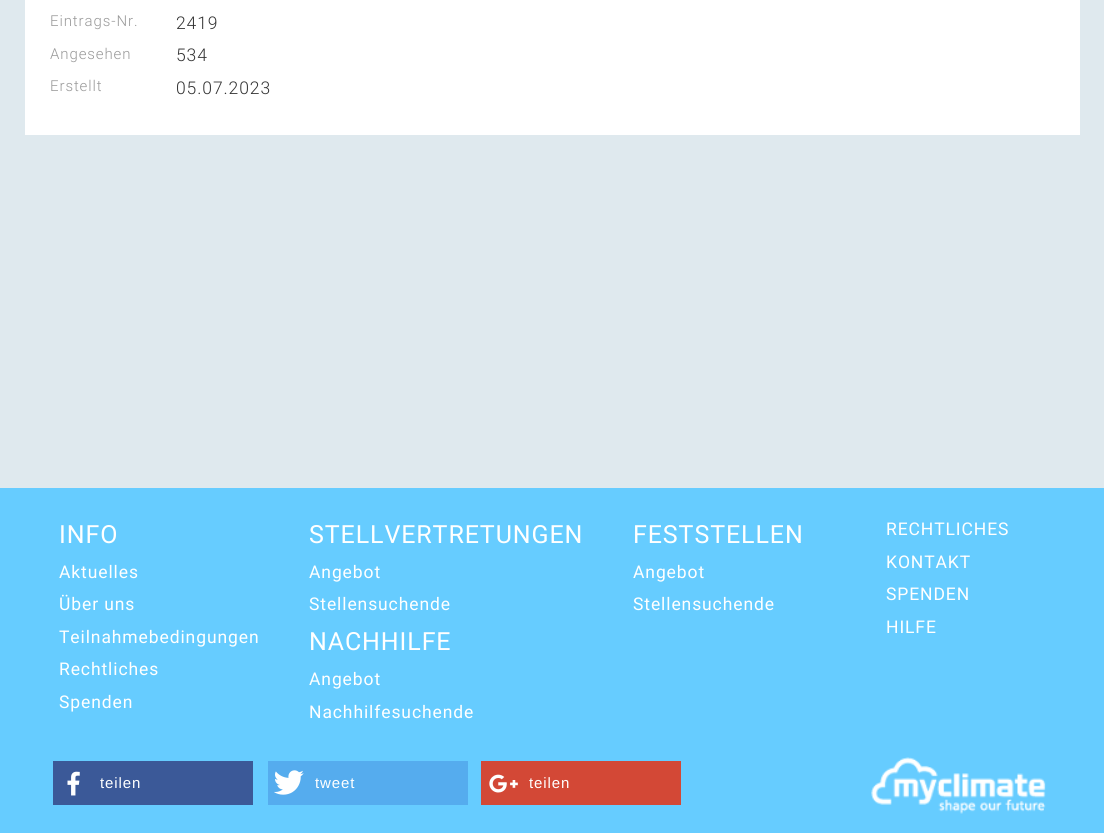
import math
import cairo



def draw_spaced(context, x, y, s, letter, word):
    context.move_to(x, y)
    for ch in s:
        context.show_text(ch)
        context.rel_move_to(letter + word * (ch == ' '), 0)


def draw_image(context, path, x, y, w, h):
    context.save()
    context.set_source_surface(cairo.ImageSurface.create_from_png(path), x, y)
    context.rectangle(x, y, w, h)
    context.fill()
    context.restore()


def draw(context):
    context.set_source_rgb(223 / 255, 233 / 255, 238 / 255)
    context.paint()
    context.set_source_rgb(1, 1, 1)
    context.rectangle(25, 0, 1055, 135)
    context.fill()
    context.set_source_rgb(102 / 255, 204 / 255, 1)
    context.rectangle(0, 488, 1104, 345)
    context.fill()
    context.set_source_rgb(59 / 255, 89 / 255, 152 / 255)
    context.rectangle(53, 761, 200, 44)
    context.fill()
    draw_image(context, "images/1.png", 67, 771, 13, 25)
    context.set_source_rgb(85 / 255, 172 / 255, 238 / 255)
    context.rectangle(268, 761, 200, 44)
    context.fill()
    draw_image(context, "images/2.png", 274, 770, 30, 25)
    context.set_source_rgb(211 / 255, 72 / 255, 54 / 255)
    context.rectangle(481, 761, 200, 44)
    context.fill()
    draw_image(context, "images/3.png", 489, 774, 29, 19)
    draw_image(context, "images/4.png", 871, 757, 175, 57)
    context.select_font_face("Roboto Light")
    context.set_font_size(15)
    context.set_source_rgb(153 / 255, 153 / 255, 153 / 255)
    draw_spaced(context, 50, 26, "Eintrags-Nr.", 0.9, 0)
    context.set_font_size(17.5)
    context.set_source_rgb(51 / 255, 51 / 255, 51 / 255)
    draw_spaced(context, 176, 29, "2419", 0.9, 0)
    context.set_font_size(15)
    context.set_source_rgb(153 / 255, 153 / 255, 153 / 255)
    draw_spaced(context, 50, 59, "Angesehen", 0.9, 0)
    context.set_font_size(17.5)
    context.set_source_rgb(51 / 255, 51 / 255, 51 / 255)
    draw_spaced(context, 176, 61, "534", 0.9, 0)
    context.set_font_size(15)
    context.set_source_rgb(153 / 255, 153 / 255, 153 / 255)
    draw_spaced(context, 50, 91, "Erstellt", 0.9, 0)
    context.set_font_size(17.5)
    context.set_source_rgb(51 / 255, 51 / 255, 51 / 255)
    draw_spaced(context, 176, 94, "05.07.2023", 0.9, 0)
    context.select_font_face("Roboto")
    context.set_font_size(25)
    context.set_source_rgb(1, 1, 1)
    draw_spaced(context, 59, 543, "INFO", 0.9, 0)
    context.set_font_size(17.5)
    draw_spaced(context, 59, 578, "Aktuelles", 0.9, 0)
    draw_spaced(context, 59, 610, "Über uns", 0.9, 0)
    draw_spaced(context, 59, 643, "Teilnahmebedingungen", 0.9, 0)
    draw_spaced(context, 59, 675, "Rechtliches", 0.9, 0)
    draw_spaced(context, 59, 708, "Spenden", 0.9, 0)
    context.set_font_size(25)
    draw_spaced(context, 309, 543, "STELLVERTRETUNGEN", 0.9, 0)
    context.set_font_size(17.5)
    draw_spaced(context, 309, 578, "Angebot", 0.9, 0)
    draw_spaced(context, 309, 610, "Stellensuchende", 0.9, 0)
    context.set_font_size(25)
    draw_spaced(context, 633, 543, "FESTSTELLEN", 0.9, 0)
    context.set_font_size(17.5)
    draw_spaced(context, 633, 578, "Angebot", 0.9, 0)
    draw_spaced(context, 633, 610, "Stellensuchende", 0.9, 0)
    context.set_font_size(25)
    draw_spaced(context, 309, 650, "NACHHILFE", 0.9, 0)
    context.set_font_size(17.5)
    draw_spaced(context, 309, 685, "Angebot", 0.9, 0)
    draw_spaced(context, 309, 718, "Nachhilfesuchende", 0.9, 0)
    draw_spaced(context, 886, 535, "RECHTLICHES", 0.9, 0)
    draw_spaced(context, 886, 568, "KONTAKT", 0.9, 0)
    draw_spaced(context, 886, 600, "SPENDEN", 0.9, 0)
    draw_spaced(context, 886, 633, "HILFE", 0.9, 0)
    context.select_font_face("Liberation Sans")
    context.set_font_size(15)
    draw_spaced(context, 100, 788, "teilen", 0.9, 0)
    draw_spaced(context, 315, 788, "tweet", 0.9, 0)
    draw_spaced(context, 529, 788, "teilen", 0.9, 0)


surface = cairo.ImageSurface(cairo.Format.RGB24, 1104, 833)
context = cairo.Context(surface)
options = cairo.FontOptions()
options.set_hint_metrics(cairo.HintMetrics.OFF)
options.set_hint_style(cairo.HintStyle.NONE)
context.set_font_options(options)
context.set_miter_limit(4)
draw(context)
surface.write_to_png("out.png")
